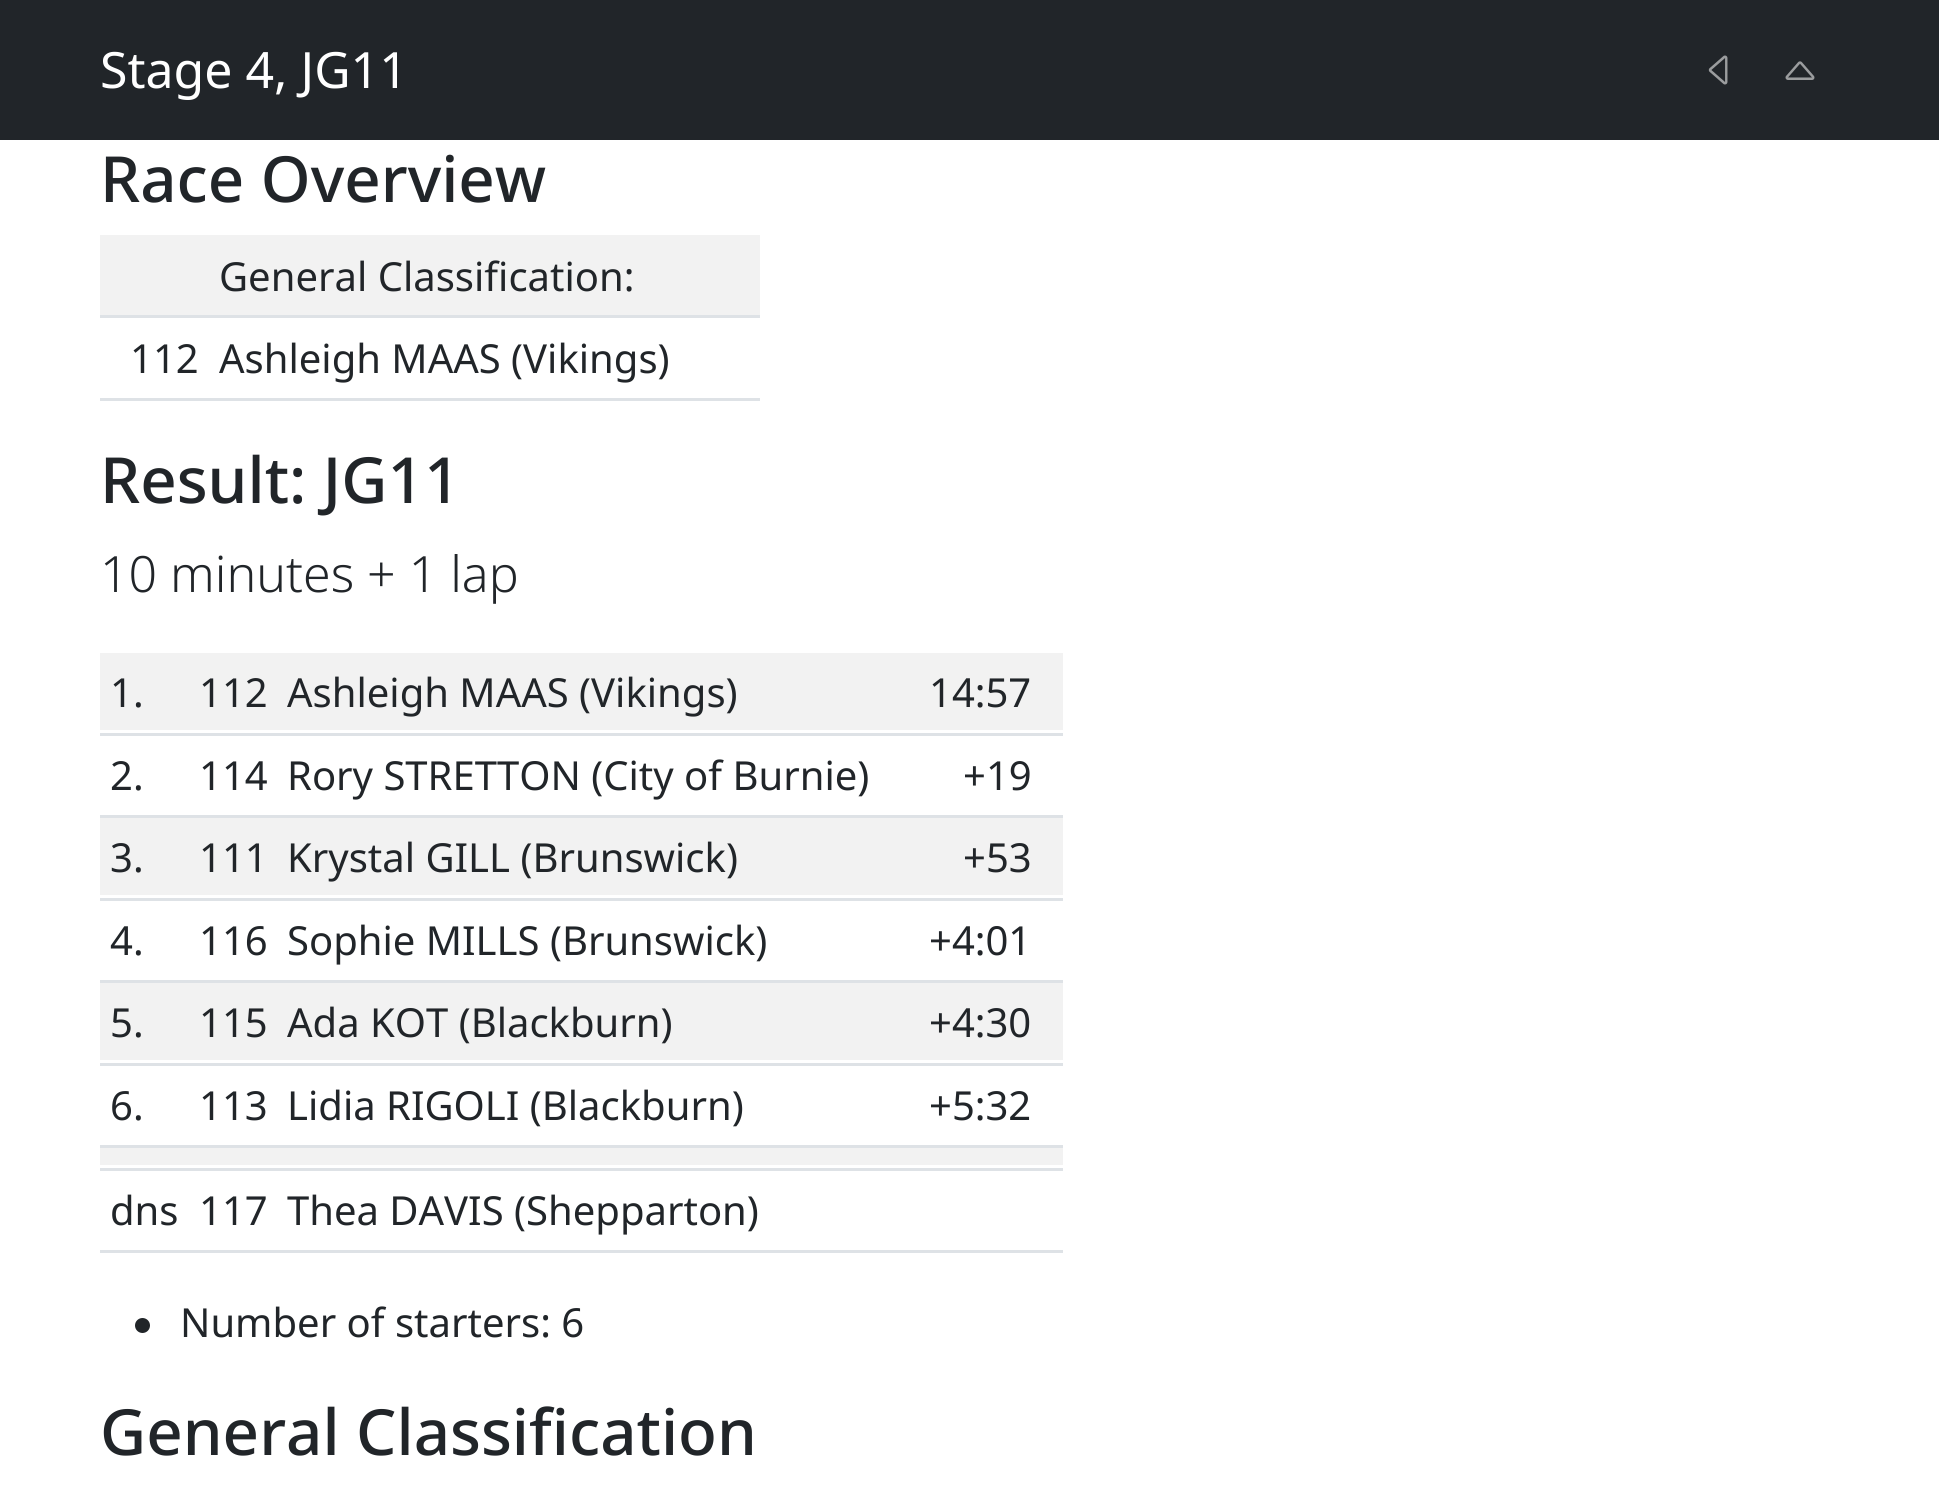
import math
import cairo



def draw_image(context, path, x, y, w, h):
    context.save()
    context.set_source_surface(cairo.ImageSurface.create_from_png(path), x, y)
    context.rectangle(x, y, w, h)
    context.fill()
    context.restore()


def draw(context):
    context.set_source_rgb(1, 1, 1)
    context.paint()
    context.set_source_rgb(33 / 255, 37 / 255, 41 / 255)
    context.rectangle(0, 0, 1939, 140)
    context.fill()
    draw_image(context, "images/1.png", 1708, 55, 20, 30)
    draw_image(context, "images/2.png", 1785, 61, 30, 19)
    context.set_source_rgb(242 / 255, 242 / 255, 242 / 255)
    context.rectangle(100, 235, 660, 80)
    context.fill()
    context.set_source_rgb(222 / 255, 226 / 255, 230 / 255)
    context.rectangle(100, 315, 660, 3)
    context.fill()
    context.rectangle(100, 398, 660, 3)
    context.fill()
    context.set_source_rgb(242 / 255, 242 / 255, 242 / 255)
    context.rectangle(100, 653, 963, 77)
    context.fill()
    context.set_source_rgb(222 / 255, 226 / 255, 230 / 255)
    context.rectangle(100, 733, 963, 3)
    context.fill()
    context.rectangle(100, 815, 963, 3)
    context.fill()
    context.set_source_rgb(242 / 255, 242 / 255, 242 / 255)
    context.rectangle(100, 818, 963, 77)
    context.fill()
    context.set_source_rgb(222 / 255, 226 / 255, 230 / 255)
    context.rectangle(100, 898, 963, 3)
    context.fill()
    context.rectangle(100, 980, 963, 3)
    context.fill()
    context.set_source_rgb(242 / 255, 242 / 255, 242 / 255)
    context.rectangle(100, 983, 963, 77)
    context.fill()
    context.set_source_rgb(222 / 255, 226 / 255, 230 / 255)
    context.rectangle(100, 1063, 963, 3)
    context.fill()
    context.rectangle(100, 1145, 963, 3)
    context.fill()
    context.set_source_rgb(242 / 255, 242 / 255, 242 / 255)
    context.rectangle(100, 1148, 963, 17)
    context.fill()
    context.set_source_rgb(222 / 255, 226 / 255, 230 / 255)
    context.rectangle(100, 1168, 963, 3)
    context.fill()
    context.rectangle(100, 1250, 963, 3)
    context.fill()
    context.set_source_rgb(33 / 255, 37 / 255, 41 / 255)
    context.arc(142.5, 1325.5, 7.5, 0, 2 * math.pi)
    context.fill()
    context.select_font_face("Noto Sans")
    context.set_font_size(50)
    context.set_source_rgb(1, 1, 1)
    context.move_to(100, 88)
    context.show_text("Stage 4, JG11")
    context.select_font_face("Noto Sans Medium")
    context.set_font_size(63.6)
    context.set_source_rgb(33 / 255, 37 / 255, 41 / 255)
    context.move_to(100, 202)
    context.show_text("Race Overview")
    context.select_font_face("Noto Sans")
    context.set_font_size(40)
    context.move_to(219, 291)
    context.show_text("General Classification:")
    context.move_to(130, 373)
    context.show_text("112")
    context.move_to(219, 373)
    context.show_text("Ashleigh MAAS (Vikings)")
    context.select_font_face("Noto Sans Medium")
    context.set_font_size(63.6)
    context.move_to(100, 503)
    context.show_text("Result: JG11")
    context.select_font_face("Noto Sans Light")
    context.set_font_size(50)
    context.move_to(100, 592)
    context.show_text("10 minutes + 1 lap")
    context.select_font_face("Noto Sans")
    context.set_font_size(40)
    context.move_to(110, 707)
    context.show_text("1.")
    context.move_to(199, 707)
    context.show_text("112")
    context.move_to(287, 707)
    context.show_text("Ashleigh MAAS (Vikings)")
    context.move_to(929, 707)
    context.show_text("14:57")
    context.move_to(110, 790)
    context.show_text("2.")
    context.move_to(199, 790)
    context.show_text("114")
    context.move_to(287, 790)
    context.show_text("Rory STRETTON (City of Burnie)")
    context.move_to(963, 790)
    context.show_text("+19")
    context.move_to(110, 872)
    context.show_text("3.")
    context.move_to(199, 872)
    context.show_text("111")
    context.move_to(287, 872)
    context.show_text("Krystal GILL (Brunswick)")
    context.move_to(963, 872)
    context.show_text("+53")
    context.move_to(110, 955)
    context.show_text("4.")
    context.move_to(199, 955)
    context.show_text("116")
    context.move_to(287, 955)
    context.show_text("Sophie MILLS (Brunswick)")
    context.move_to(929, 955)
    context.show_text("+4:01")
    context.move_to(110, 1037)
    context.show_text("5.")
    context.move_to(199, 1037)
    context.show_text("115")
    context.move_to(287, 1037)
    context.show_text("Ada KOT (Blackburn)")
    context.move_to(929, 1037)
    context.show_text("+4:30")
    context.move_to(110, 1120)
    context.show_text("6.")
    context.move_to(199, 1120)
    context.show_text("113")
    context.move_to(287, 1120)
    context.show_text("Lidia RIGOLI (Blackburn)")
    context.move_to(929, 1120)
    context.show_text("+5:32")
    context.move_to(110, 1225)
    context.show_text("dns")
    context.move_to(199, 1225)
    context.show_text("117")
    context.move_to(287, 1225)
    context.show_text("Thea DAVIS (Shepparton)")
    context.move_to(180, 1337)
    context.show_text("Number of starters: 6")
    context.select_font_face("Noto Sans Medium")
    context.set_font_size(63.6)
    context.move_to(100, 1455)
    context.show_text("General Classification")


surface = cairo.ImageSurface(cairo.Format.RGB24, 1939, 1485)
context = cairo.Context(surface)
options = cairo.FontOptions()
options.set_hint_metrics(cairo.HintMetrics.OFF)
options.set_hint_style(cairo.HintStyle.NONE)
context.set_font_options(options)
context.set_miter_limit(4)
draw(context)
surface.write_to_png("out.png")
